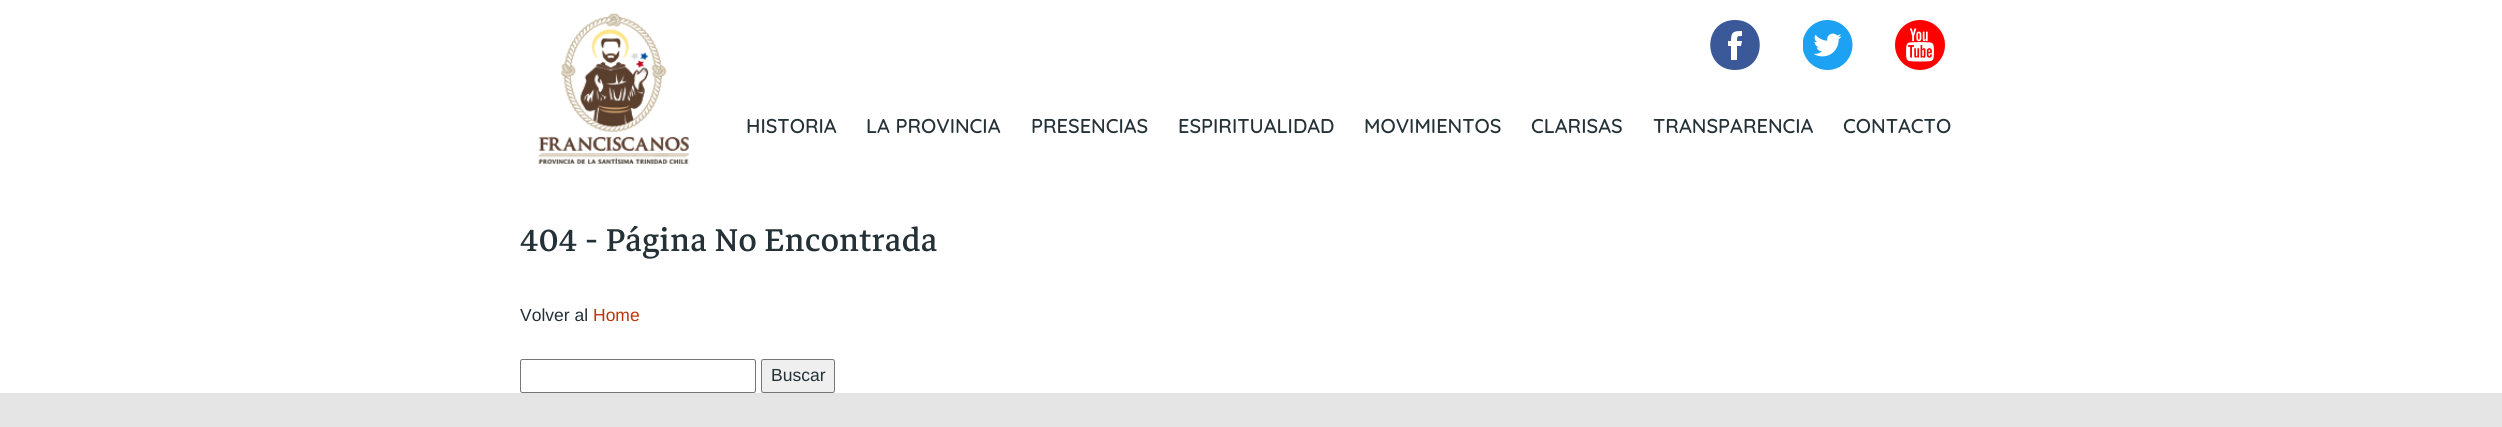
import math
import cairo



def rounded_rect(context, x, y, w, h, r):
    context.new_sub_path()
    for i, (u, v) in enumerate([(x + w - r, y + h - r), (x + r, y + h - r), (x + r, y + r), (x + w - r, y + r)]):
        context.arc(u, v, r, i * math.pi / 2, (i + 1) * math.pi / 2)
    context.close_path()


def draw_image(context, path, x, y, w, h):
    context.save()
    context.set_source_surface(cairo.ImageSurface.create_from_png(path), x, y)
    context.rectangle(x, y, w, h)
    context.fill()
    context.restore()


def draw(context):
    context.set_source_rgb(1, 1, 1)
    context.paint()
    draw_image(context, "images/1.png", 538, 13, 151, 151)
    context.set_source_rgb(59 / 255, 89 / 255, 152 / 255)
    context.new_path()
    context.move_to(1735, 20)
    context.curve_to(1702, 20, 1702, 70, 1735, 70)
    context.curve_to(1768, 70, 1768, 20, 1735, 20)
    context.close_path()
    context.move_to(1741, 46)
    context.line_to(1737, 46)
    context.line_to(1737, 60)
    context.line_to(1731, 60)
    context.line_to(1731, 46)
    context.line_to(1728, 46)
    context.line_to(1728, 41)
    context.line_to(1731, 41)
    context.curve_to(1731, 32, 1733, 31, 1742, 31)
    context.line_to(1742, 36)
    context.curve_to(1737, 36, 1737, 36, 1737, 41)
    context.line_to(1742, 41)
    context.close_path()
    context.fill()
    draw_image(context, "images/2.png", 1803, 20, 50, 50)
    draw_image(context, "images/3.png", 1895, 20, 50, 50)
    rounded_rect(context, 520.5, 359.5, 235, 33, 2)
    context.set_source_rgb(118 / 255, 118 / 255, 118 / 255)
    context.set_line_width(1)
    context.stroke()
    context.set_source_rgb(239 / 255, 239 / 255, 239 / 255)
    rounded_rect(context, 761.5, 359.5, 73, 33, 2)
    context.fill_preserve()
    context.set_source_rgb(118 / 255, 118 / 255, 118 / 255)
    context.stroke()
    context.set_source_rgb(229 / 255, 229 / 255, 229 / 255)
    context.rectangle(0, 393, 2502, 34)
    context.fill()
    context.select_font_face("Quicksand Medium")
    context.set_font_size(20)
    context.set_source_rgb(36 / 255, 49 / 255, 55 / 255)
    context.move_to(746, 133)
    context.show_text("HISTORIA")
    context.move_to(866, 133)
    context.show_text("LA PROVINCIA")
    context.move_to(1031, 133)
    context.show_text("PRESENCIAS")
    context.move_to(1178, 133)
    context.show_text("ESPIRITUALIDAD")
    context.move_to(1364, 133)
    context.show_text("MOVIMIENTOS")
    context.move_to(1531, 133)
    context.show_text("CLARISAS")
    context.move_to(1653, 133)
    context.show_text("TRANSPARENCIA")
    context.move_to(1843, 133)
    context.show_text("CONTACTO")
    context.select_font_face("Markazi Text")
    context.set_font_size(45)
    context.move_to(520, 251)
    context.show_text("404 - Página No Encontrada")
    context.select_font_face("Liberation Sans")
    context.set_font_size(17.5)
    context.move_to(520, 321)
    context.show_text("Volver al")
    context.set_source_rgb(188 / 255, 54 / 255, 10 / 255)
    context.move_to(593, 321)
    context.show_text("Home")
    context.set_source_rgb(36 / 255, 49 / 255, 55 / 255)
    context.move_to(771, 381)
    context.show_text("Buscar")


surface = cairo.ImageSurface(cairo.Format.RGB24, 2502, 427)
context = cairo.Context(surface)
options = cairo.FontOptions()
options.set_hint_metrics(cairo.HintMetrics.OFF)
options.set_hint_style(cairo.HintStyle.NONE)
context.set_font_options(options)
context.set_miter_limit(4)
draw(context)
surface.write_to_png("out.png")
